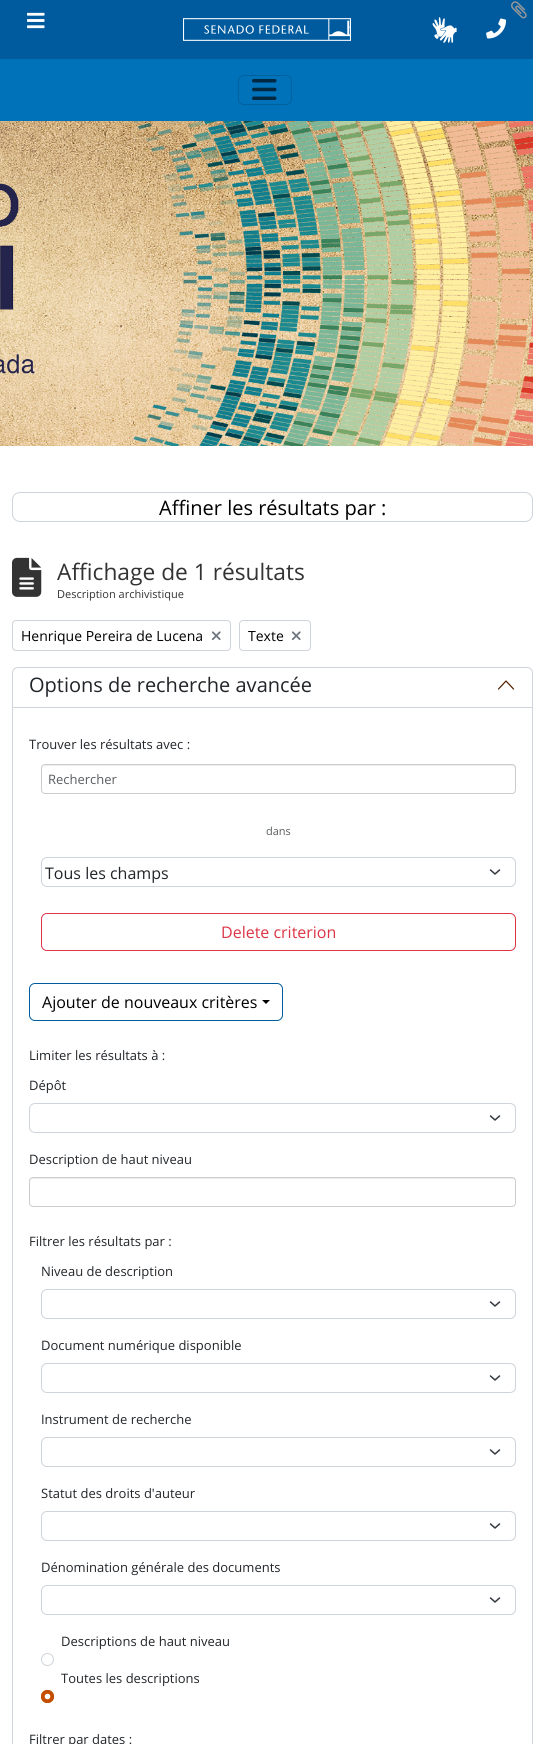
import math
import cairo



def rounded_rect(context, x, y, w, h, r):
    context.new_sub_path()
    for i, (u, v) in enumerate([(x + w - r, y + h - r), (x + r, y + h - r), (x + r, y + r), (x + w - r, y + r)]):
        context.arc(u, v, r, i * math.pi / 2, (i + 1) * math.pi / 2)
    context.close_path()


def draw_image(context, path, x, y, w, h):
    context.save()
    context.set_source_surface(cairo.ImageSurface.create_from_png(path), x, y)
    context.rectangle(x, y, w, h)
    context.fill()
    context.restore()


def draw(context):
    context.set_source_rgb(1, 1, 1)
    context.paint()
    context.set_source_rgb(0, 91 / 255, 158 / 255)
    context.rectangle(0, 0, 533, 59)
    context.fill()
    draw_image(context, "images/1.png", 27, 12, 18, 17)
    draw_image(context, "images/2.png", 183, 18, 168, 23)
    draw_image(context, "images/3.png", 432, 17, 25, 26)
    draw_image(context, "images/4.png", 486, 18, 20, 21)
    context.set_source_rgb(0, 114 / 255, 185 / 255)
    context.rectangle(0, 59, 533, 62)
    context.fill()
    rounded_rect(context, 238.5, 75.5, 53, 29, 5.5)
    context.set_source_rgb(0, 97 / 255, 157 / 255)
    context.set_line_width(1)
    context.stroke()
    draw_image(context, "images/5.png", 252, 79, 25, 21)
    draw_image(context, "images/6.png", 0, 121, 533, 325)
    rounded_rect(context, 12.5, 492.5, 520, 29, 7.5)
    context.set_source_rgb(206 / 255, 212 / 255, 218 / 255)
    context.stroke()
    draw_image(context, "images/7.png", 511, 1, 16, 18)
    draw_image(context, "images/8.png", 12, 557, 30, 40)
    rounded_rect(context, 12.5, 620.5, 218, 30, 3.5)
    context.stroke()
    draw_image(context, "images/9.png", 211, 631, 10, 10)
    rounded_rect(context, 239.5, 620.5, 71, 30, 3.5)
    context.stroke()
    draw_image(context, "images/9.png", 291, 631, 10, 10)
    rounded_rect(context, 12.5, 667.5, 520, 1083, 5.5)
    context.stroke()
    context.rectangle(13, 707, 519, 1)
    context.fill()
    context.new_path()
    context.move_to(513.5, 689)
    context.line_to(506, 681)
    context.line_to(498.5, 689)
    context.set_source_rgb(78 / 255, 31 / 255, 0)
    context.set_line_width(1.2)
    context.set_line_cap(cairo.LineCap.ROUND)
    context.set_line_join(cairo.LineJoin.ROUND)
    context.stroke()
    context.set_source_rgb(236 / 255, 236 / 255, 236 / 255)
    context.new_path()
    context.move_to(45, 766)
    context.line_to(512, 766)
    context.curve_to(514, 766, 515, 767, 515, 769)
    context.curve_to(515, 767, 515, 766, 513, 765)
    context.line_to(44, 765)
    context.line_to(42, 767)
    context.line_to(42, 769)
    context.curve_to(42, 767, 43, 766, 45, 766)
    context.close_path()
    context.fill()
    rounded_rect(context, 41.5, 764.5, 474, 29, 3.5)
    context.set_source_rgb(204 / 255, 204 / 255, 204 / 255)
    context.set_line_width(1)
    context.set_line_cap(cairo.LineCap.BUTT)
    context.set_line_join(cairo.LineJoin.MITER)
    context.stroke()
    context.new_path()
    context.move_to(490.5, 870)
    context.line_to(495, 874)
    context.line_to(499.5, 870)
    context.set_source_rgb(52 / 255, 58 / 255, 64 / 255)
    context.set_line_width(1.5)
    context.set_line_cap(cairo.LineCap.ROUND)
    context.set_line_join(cairo.LineJoin.ROUND)
    context.stroke()
    rounded_rect(context, 41.5, 857.5, 474, 29, 5.5)
    context.set_source_rgb(206 / 255, 212 / 255, 218 / 255)
    context.set_line_width(1)
    context.set_line_cap(cairo.LineCap.BUTT)
    context.set_line_join(cairo.LineJoin.MITER)
    context.stroke()
    rounded_rect(context, 41.5, 913.5, 474, 37, 5.5)
    context.set_source_rgb(220 / 255, 53 / 255, 69 / 255)
    context.stroke()
    rounded_rect(context, 29.5, 983.5, 253, 37, 5.5)
    context.set_source_rgb(0, 91 / 255, 158 / 255)
    context.stroke()
    context.set_source_rgb(0, 0, 0)
    context.new_path()
    context.move_to(262, 1000)
    context.line_to(270, 1000)
    context.line_to(266, 1004)
    context.close_path()
    context.fill()
    context.new_path()
    context.move_to(490.5, 1116)
    context.line_to(495, 1120)
    context.line_to(499.5, 1116)
    context.set_source_rgb(52 / 255, 58 / 255, 64 / 255)
    context.set_line_width(1.5)
    context.set_line_cap(cairo.LineCap.ROUND)
    context.set_line_join(cairo.LineJoin.ROUND)
    context.stroke()
    rounded_rect(context, 29.5, 1103.5, 486, 29, 5.5)
    context.set_source_rgb(206 / 255, 212 / 255, 218 / 255)
    context.set_line_width(1)
    context.set_line_cap(cairo.LineCap.BUTT)
    context.set_line_join(cairo.LineJoin.MITER)
    context.stroke()
    context.set_source_rgb(236 / 255, 236 / 255, 236 / 255)
    context.new_path()
    context.move_to(33, 1179)
    context.line_to(512, 1179)
    context.curve_to(514, 1179, 515, 1180, 515, 1182)
    context.line_to(515, 1181)
    context.curve_to(515, 1179, 514, 1178, 512, 1178)
    context.line_to(33, 1178)
    context.curve_to(31, 1178, 30, 1179, 30, 1181)
    context.line_to(30, 1182)
    context.curve_to(30, 1180, 31, 1179, 33, 1179)
    context.close_path()
    context.fill()
    rounded_rect(context, 29.5, 1177.5, 486, 29, 3.5)
    context.set_source_rgb(204 / 255, 204 / 255, 204 / 255)
    context.stroke()
    context.new_path()
    context.move_to(490.5, 1302)
    context.line_to(495, 1306)
    context.line_to(499.5, 1302)
    context.set_source_rgb(52 / 255, 58 / 255, 64 / 255)
    context.set_line_width(1.5)
    context.set_line_cap(cairo.LineCap.ROUND)
    context.set_line_join(cairo.LineJoin.ROUND)
    context.stroke()
    rounded_rect(context, 41.5, 1289.5, 474, 29, 5.5)
    context.set_source_rgb(206 / 255, 212 / 255, 218 / 255)
    context.set_line_width(1)
    context.set_line_cap(cairo.LineCap.BUTT)
    context.set_line_join(cairo.LineJoin.MITER)
    context.stroke()
    context.new_path()
    context.move_to(490.5, 1376)
    context.line_to(495, 1380)
    context.line_to(499.5, 1376)
    context.set_source_rgb(52 / 255, 58 / 255, 64 / 255)
    context.set_line_width(1.5)
    context.set_line_cap(cairo.LineCap.ROUND)
    context.set_line_join(cairo.LineJoin.ROUND)
    context.stroke()
    rounded_rect(context, 41.5, 1363.5, 474, 29, 5.5)
    context.set_source_rgb(206 / 255, 212 / 255, 218 / 255)
    context.set_line_width(1)
    context.set_line_cap(cairo.LineCap.BUTT)
    context.set_line_join(cairo.LineJoin.MITER)
    context.stroke()
    context.new_path()
    context.move_to(490.5, 1450)
    context.line_to(495, 1454)
    context.line_to(499.5, 1450)
    context.set_source_rgb(52 / 255, 58 / 255, 64 / 255)
    context.set_line_width(1.5)
    context.set_line_cap(cairo.LineCap.ROUND)
    context.set_line_join(cairo.LineJoin.ROUND)
    context.stroke()
    rounded_rect(context, 41.5, 1437.5, 474, 29, 5.5)
    context.set_source_rgb(206 / 255, 212 / 255, 218 / 255)
    context.set_line_width(1)
    context.set_line_cap(cairo.LineCap.BUTT)
    context.set_line_join(cairo.LineJoin.MITER)
    context.stroke()
    context.new_path()
    context.move_to(490.5, 1524)
    context.line_to(495, 1528)
    context.line_to(499.5, 1524)
    context.set_source_rgb(52 / 255, 58 / 255, 64 / 255)
    context.set_line_width(1.5)
    context.set_line_cap(cairo.LineCap.ROUND)
    context.set_line_join(cairo.LineJoin.ROUND)
    context.stroke()
    rounded_rect(context, 41.5, 1511.5, 474, 29, 5.5)
    context.set_source_rgb(206 / 255, 212 / 255, 218 / 255)
    context.set_line_width(1)
    context.set_line_cap(cairo.LineCap.BUTT)
    context.set_line_join(cairo.LineJoin.MITER)
    context.stroke()
    context.new_path()
    context.move_to(490.5, 1598)
    context.line_to(495, 1602)
    context.line_to(499.5, 1598)
    context.set_source_rgb(52 / 255, 58 / 255, 64 / 255)
    context.set_line_width(1.5)
    context.set_line_cap(cairo.LineCap.ROUND)
    context.set_line_join(cairo.LineJoin.ROUND)
    context.stroke()
    rounded_rect(context, 41.5, 1585.5, 474, 29, 5.5)
    context.set_source_rgb(206 / 255, 212 / 255, 218 / 255)
    context.set_line_width(1)
    context.set_line_cap(cairo.LineCap.BUTT)
    context.set_line_join(cairo.LineJoin.MITER)
    context.stroke()
    context.arc(47.5, 1659.5, 6, 0, 2 * math.pi)
    context.stroke()
    context.set_source_rgb(196 / 255, 78 / 255, 0)
    context.arc(47.5, 1696.5, 6.5, 0, 2 * math.pi)
    context.fill()
    context.set_source_rgb(1, 1, 1)
    context.arc(47.5, 1696.5, 2.8, 0, 2 * math.pi)
    context.fill()
    context.arc(47.5, 1696.5, 6, 0, 2 * math.pi)
    context.set_source_rgb(196 / 255, 78 / 255, 0)
    context.stroke()
    context.select_font_face("Open Sans")
    context.set_font_size(20)
    context.set_source_rgb(0, 0, 0)
    context.move_to(159, 515)
    context.show_text("Affiner les résultats par :")
    context.set_font_size(22.75)
    context.set_source_rgb(51 / 255, 51 / 255, 51 / 255)
    context.move_to(57, 580)
    context.show_text("Affichage de 1 résultats")
    context.set_font_size(11)
    context.move_to(57, 598)
    context.show_text("Description archivistique")
    context.set_font_size(14)
    context.set_source_rgb(0, 0, 0)
    context.move_to(21, 641)
    context.show_text("Henrique Pereira de Lucena")
    context.move_to(248, 641)
    context.show_text("Texte")
    context.set_font_size(20)
    context.set_source_rgb(33 / 255, 37 / 255, 41 / 255)
    context.move_to(29, 692)
    context.show_text("Options de recherche avancée")
    context.set_font_size(13)
    context.move_to(29, 749)
    context.show_text("Trouver les résultats avec :")
    context.set_source_rgb(89 / 255, 92 / 255, 95 / 255)
    context.move_to(48, 784)
    context.show_text("Rechercher")
    context.set_font_size(11)
    context.move_to(266, 835)
    context.show_text("dans")
    context.set_font_size(16)
    context.set_source_rgb(33 / 255, 37 / 255, 41 / 255)
    context.move_to(45, 879)
    context.show_text("Tous les champs")
    context.set_source_rgb(220 / 255, 53 / 255, 69 / 255)
    context.move_to(221, 938)
    context.show_text("Delete criterion")
    context.set_source_rgb(0, 0, 0)
    context.move_to(42, 1008)
    context.show_text("Ajouter de nouveaux critères")
    context.set_font_size(13)
    context.set_source_rgb(33 / 255, 37 / 255, 41 / 255)
    context.move_to(29, 1060)
    context.show_text("Limiter les résultats à :")
    context.move_to(29, 1090)
    context.show_text("Dépôt")
    context.move_to(29, 1164)
    context.show_text("Description de haut niveau")
    context.move_to(29, 1246)
    context.show_text("Filtrer les résultats par :")
    context.move_to(41, 1276)
    context.show_text("Niveau de description")
    context.move_to(41, 1350)
    context.show_text("Document numérique disponible")
    context.move_to(41, 1424)
    context.show_text("Instrument de recherche")
    context.move_to(41, 1498)
    context.show_text("Statut des droits d'auteur")
    context.move_to(41, 1572)
    context.show_text("Dénomination générale des documents")
    context.move_to(61, 1646)
    context.show_text("Descriptions de haut niveau")
    context.move_to(61, 1683)
    context.show_text("Toutes les descriptions")
    context.move_to(29, 1744)
    context.show_text("Filtrer par dates :")


surface = cairo.ImageSurface(cairo.Format.RGB24, 533, 1744)
context = cairo.Context(surface)
options = cairo.FontOptions()
options.set_hint_metrics(cairo.HintMetrics.OFF)
options.set_hint_style(cairo.HintStyle.NONE)
context.set_font_options(options)
context.set_miter_limit(4)
draw(context)
surface.write_to_png("out.png")
